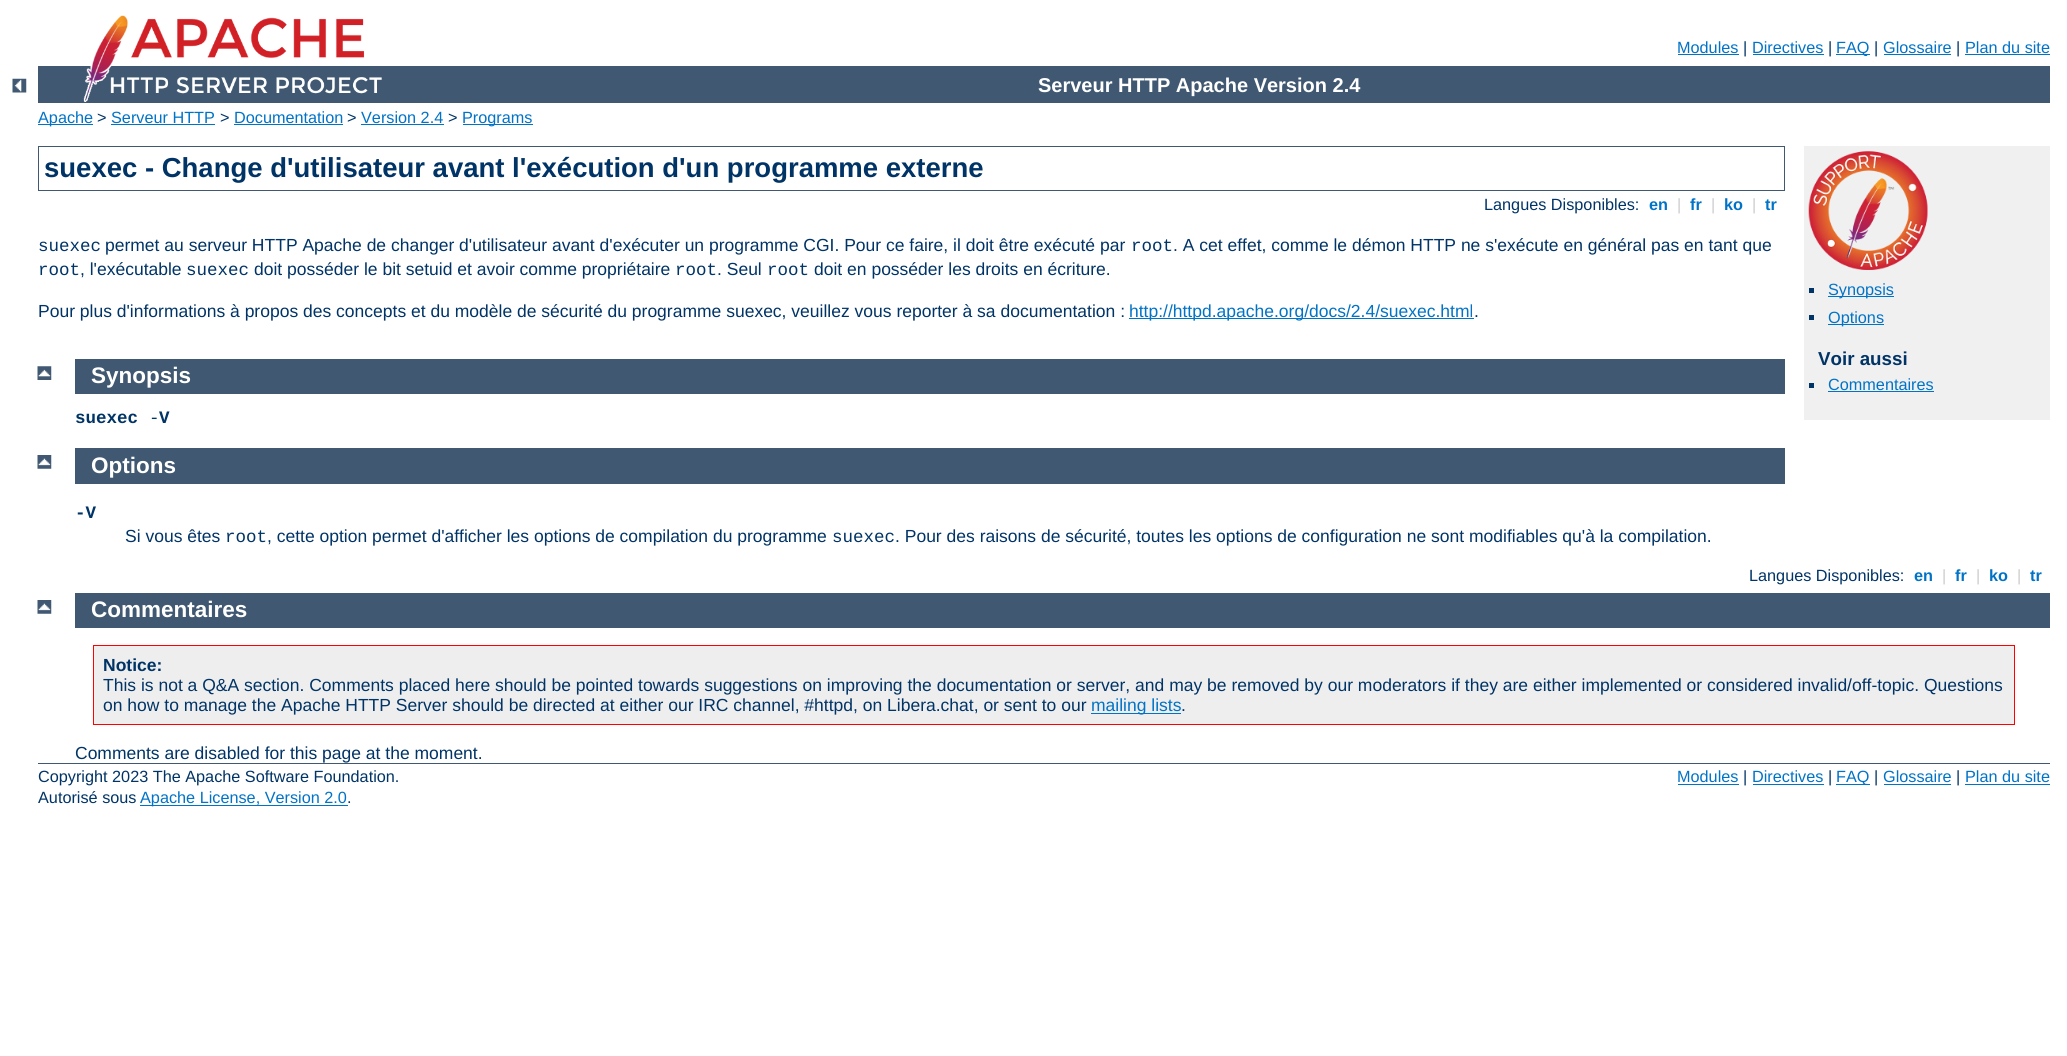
import math
import cairo



def draw_image(context, path, x, y, w, h):
    context.save()
    context.set_source_surface(cairo.ImageSurface.create_from_png(path), x, y)
    context.rectangle(x, y, w, h)
    context.fill()
    context.restore()


def draw(context):
    context.set_source_rgb(1, 1, 1)
    context.paint()
    draw_image(context, "images/1.png", 12, 78, 15, 15)
    context.set_source_rgb(64 / 255, 88 / 255, 113 / 255)
    context.rectangle(38, 66, 2012, 37)
    context.fill()
    draw_image(context, "images/2.png", 83, 15, 299, 87)
    context.set_source_rgb(0, 115 / 255, 199 / 255)
    context.rectangle(1678, 54, 61, 1)
    context.fill()
    context.rectangle(1753, 54, 71, 1)
    context.fill()
    context.rectangle(1836, 54, 34, 1)
    context.fill()
    context.rectangle(1884, 54, 67, 1)
    context.fill()
    context.rectangle(1965, 54, 85, 1)
    context.fill()
    context.rectangle(38, 124, 55, 1)
    context.fill()
    context.rectangle(111, 124, 104, 1)
    context.fill()
    context.rectangle(234, 124, 109, 1)
    context.fill()
    context.rectangle(361, 124, 83, 1)
    context.fill()
    context.rectangle(463, 124, 70, 1)
    context.fill()
    context.rectangle(38.5, 146.5, 1746, 44)
    context.set_source_rgb(64 / 255, 88 / 255, 113 / 255)
    context.set_line_width(1)
    context.stroke()
    context.set_source_rgb(0, 115 / 255, 199 / 255)
    context.rectangle(1129, 318, 345, 1)
    context.fill()
    draw_image(context, "images/3.png", 37, 366, 15, 14)
    context.set_source_rgb(64 / 255, 88 / 255, 113 / 255)
    context.rectangle(75, 359, 1710, 35)
    context.fill()
    context.set_source_rgb(240 / 255, 240 / 255, 240 / 255)
    context.rectangle(1804, 146, 246, 274)
    context.fill()
    draw_image(context, "images/4.png", 1808, 151, 120, 119)
    context.set_source_rgb(0, 51 / 255, 102 / 255)
    context.rectangle(1809, 288, 5, 5)
    context.fill()
    context.set_source_rgb(0, 115 / 255, 199 / 255)
    context.rectangle(1828, 296, 66, 1)
    context.fill()
    context.set_source_rgb(0, 51 / 255, 102 / 255)
    context.rectangle(1809, 315, 5, 5)
    context.fill()
    context.set_source_rgb(0, 115 / 255, 199 / 255)
    context.rectangle(1828, 324, 56, 1)
    context.fill()
    context.set_source_rgb(0, 51 / 255, 102 / 255)
    context.rectangle(1809, 383, 5, 5)
    context.fill()
    context.set_source_rgb(0, 115 / 255, 199 / 255)
    context.rectangle(1828, 391, 106, 1)
    context.fill()
    draw_image(context, "images/5.png", 37, 455, 15, 14)
    context.set_source_rgb(64 / 255, 88 / 255, 113 / 255)
    context.rectangle(75, 448, 1710, 36)
    context.fill()
    draw_image(context, "images/5.png", 37, 600, 15, 14)
    context.rectangle(75, 593, 1975, 35)
    context.fill()
    context.set_source_rgb(238 / 255, 238 / 255, 238 / 255)
    context.rectangle(93.5, 645.5, 1921, 79)
    context.fill_preserve()
    context.set_source_rgb(1, 0, 0)
    context.stroke()
    context.set_source_rgb(0, 115 / 255, 199 / 255)
    context.rectangle(1091, 713, 90, 1)
    context.fill()
    context.set_source_rgb(64 / 255, 88 / 255, 113 / 255)
    context.rectangle(38, 763, 2012, 1)
    context.fill()
    context.set_source_rgb(0, 115 / 255, 199 / 255)
    context.rectangle(140, 805, 208, 1)
    context.fill()
    context.rectangle(1678, 784, 61, 1)
    context.fill()
    context.rectangle(1753, 784, 71, 1)
    context.fill()
    context.rectangle(1836, 784, 34, 1)
    context.fill()
    context.rectangle(1884, 784, 67, 1)
    context.fill()
    context.rectangle(1965, 784, 85, 1)
    context.fill()
    context.select_font_face("Liberation Sans")
    context.set_font_size(16.25)
    context.move_to(1677, 53)
    context.show_text("Modules")
    context.set_source_rgb(0, 51 / 255, 102 / 255)
    context.move_to(1743, 53)
    context.show_text("|")
    context.set_source_rgb(0, 115 / 255, 199 / 255)
    context.move_to(1752, 53)
    context.show_text("Directives")
    context.set_source_rgb(0, 51 / 255, 102 / 255)
    context.move_to(1828, 53)
    context.show_text("|")
    context.set_source_rgb(0, 115 / 255, 199 / 255)
    context.move_to(1836, 53)
    context.show_text("FAQ")
    context.set_source_rgb(0, 51 / 255, 102 / 255)
    context.move_to(1874, 53)
    context.show_text("|")
    context.set_source_rgb(0, 115 / 255, 199 / 255)
    context.move_to(1883, 53)
    context.show_text("Glossaire")
    context.set_source_rgb(0, 51 / 255, 102 / 255)
    context.move_to(1956, 53)
    context.show_text("|")
    context.set_source_rgb(0, 115 / 255, 199 / 255)
    context.move_to(1965, 53)
    context.show_text("Plan du site")
    context.select_font_face("Liberation Sans", cairo.FontSlant.NORMAL, cairo.FontWeight.BOLD)
    context.set_font_size(20)
    context.set_source_rgb(1, 1, 1)
    context.move_to(1038, 92)
    context.show_text("Serveur HTTP Apache Version 2.4")
    context.select_font_face("Liberation Sans")
    context.set_font_size(16.25)
    context.set_source_rgb(0, 115 / 255, 199 / 255)
    context.move_to(38, 123)
    context.show_text("Apache")
    context.set_source_rgb(0, 51 / 255, 102 / 255)
    context.move_to(97, 123)
    context.show_text(">")
    context.set_source_rgb(0, 115 / 255, 199 / 255)
    context.move_to(111, 123)
    context.show_text("Serveur HTTP")
    context.set_source_rgb(0, 51 / 255, 102 / 255)
    context.move_to(220, 123)
    context.show_text(">")
    context.set_source_rgb(0, 115 / 255, 199 / 255)
    context.move_to(234, 123)
    context.show_text("Documentation")
    context.set_source_rgb(0, 51 / 255, 102 / 255)
    context.move_to(347, 123)
    context.show_text(">")
    context.set_source_rgb(0, 115 / 255, 199 / 255)
    context.move_to(361, 123)
    context.show_text("Version 2.4")
    context.set_source_rgb(0, 51 / 255, 102 / 255)
    context.move_to(448, 123)
    context.show_text(">")
    context.set_source_rgb(0, 115 / 255, 199 / 255)
    context.move_to(462, 123)
    context.show_text("Programs")
    context.select_font_face("Liberation Sans", cairo.FontSlant.NORMAL, cairo.FontWeight.BOLD)
    context.set_font_size(27.5)
    context.set_source_rgb(0, 51 / 255, 102 / 255)
    context.move_to(44, 177)
    context.show_text("suexec - Change d'utilisateur avant l'exécution d'un programme externe")
    context.select_font_face("Liberation Sans")
    context.set_font_size(16.25)
    context.move_to(1484, 210)
    context.show_text("Langues Disponibles:")
    context.select_font_face("Liberation Sans", cairo.FontSlant.NORMAL, cairo.FontWeight.BOLD)
    context.set_source_rgb(0, 115 / 255, 199 / 255)
    context.move_to(1649, 210)
    context.show_text("en")
    context.select_font_face("Liberation Sans")
    context.set_source_rgb(204 / 255, 204 / 255, 204 / 255)
    context.move_to(1677, 210)
    context.show_text("|")
    context.select_font_face("Liberation Sans", cairo.FontSlant.NORMAL, cairo.FontWeight.BOLD)
    context.set_source_rgb(0, 115 / 255, 199 / 255)
    context.move_to(1690, 210)
    context.show_text("fr")
    context.select_font_face("Liberation Sans")
    context.set_source_rgb(204 / 255, 204 / 255, 204 / 255)
    context.move_to(1711, 210)
    context.show_text("|")
    context.select_font_face("Liberation Sans", cairo.FontSlant.NORMAL, cairo.FontWeight.BOLD)
    context.set_source_rgb(0, 115 / 255, 199 / 255)
    context.move_to(1724, 210)
    context.show_text("ko")
    context.select_font_face("Liberation Sans")
    context.set_source_rgb(204 / 255, 204 / 255, 204 / 255)
    context.move_to(1752, 210)
    context.show_text("|")
    context.select_font_face("Liberation Sans", cairo.FontSlant.NORMAL, cairo.FontWeight.BOLD)
    context.set_source_rgb(0, 115 / 255, 199 / 255)
    context.move_to(1765, 210)
    context.show_text("tr")
    context.select_font_face("Liberation Mono")
    context.set_font_size(17.5)
    context.set_source_rgb(0, 51 / 255, 102 / 255)
    context.move_to(38, 251)
    context.show_text("suexec")
    context.select_font_face("Liberation Sans")
    context.move_to(105, 251)
    context.show_text("permet au serveur HTTP Apache de changer d'utilisateur avant d'exécuter un programme CGI. Pour ce faire, il doit être exécuté par")
    context.select_font_face("Liberation Mono")
    context.move_to(1131, 251)
    context.show_text("root")
    context.select_font_face("Liberation Sans")
    context.move_to(1173, 251)
    context.show_text(". A cet effet, comme le démon HTTP ne s'exécute en général pas en tant que")
    context.select_font_face("Liberation Mono")
    context.move_to(38, 275)
    context.show_text("root")
    context.select_font_face("Liberation Sans")
    context.move_to(80, 275)
    context.show_text(", l'exécutable")
    context.select_font_face("Liberation Mono")
    context.move_to(186, 275)
    context.show_text("suexec")
    context.select_font_face("Liberation Sans")
    context.move_to(254, 275)
    context.show_text("doit posséder le bit setuid et avoir comme propriétaire")
    context.select_font_face("Liberation Mono")
    context.move_to(675, 275)
    context.show_text("root")
    context.select_font_face("Liberation Sans")
    context.move_to(717, 275)
    context.show_text(". Seul")
    context.select_font_face("Liberation Mono")
    context.move_to(767, 275)
    context.show_text("root")
    context.select_font_face("Liberation Sans")
    context.move_to(814, 275)
    context.show_text("doit en posséder les droits en écriture.")
    context.move_to(38, 317)
    context.show_text("Pour plus d'informations à propos des concepts et du modèle de sécurité du programme suexec, veuillez vous reporter à sa documentation :")
    context.set_source_rgb(0, 115 / 255, 199 / 255)
    context.move_to(1129, 317)
    context.show_text("http://httpd.apache.org/docs/2.4/suexec.html")
    context.set_source_rgb(0, 51 / 255, 102 / 255)
    context.move_to(1474, 317)
    context.show_text(".")
    context.select_font_face("Liberation Sans", cairo.FontSlant.NORMAL, cairo.FontWeight.BOLD)
    context.set_font_size(22.5)
    context.set_source_rgb(1, 1, 1)
    context.move_to(91, 383)
    context.show_text("Synopsis")
    context.select_font_face("Liberation Mono", cairo.FontSlant.NORMAL, cairo.FontWeight.BOLD)
    context.set_font_size(17.5)
    context.set_source_rgb(0, 51 / 255, 102 / 255)
    context.move_to(75, 423)
    context.show_text("suexec")
    context.select_font_face("Liberation Mono")
    context.move_to(149, 423)
    context.show_text("-")
    context.select_font_face("Liberation Mono", cairo.FontSlant.NORMAL, cairo.FontWeight.BOLD)
    context.move_to(159, 423)
    context.show_text("V")
    context.select_font_face("Liberation Sans")
    context.set_font_size(16.25)
    context.set_source_rgb(0, 115 / 255, 199 / 255)
    context.move_to(1828, 295)
    context.show_text("Synopsis")
    context.move_to(1828, 323)
    context.show_text("Options")
    context.select_font_face("Liberation Sans", cairo.FontSlant.NORMAL, cairo.FontWeight.BOLD)
    context.set_font_size(18.75)
    context.set_source_rgb(0, 51 / 255, 102 / 255)
    context.move_to(1818, 365)
    context.show_text("Voir aussi")
    context.select_font_face("Liberation Sans")
    context.set_font_size(16.25)
    context.set_source_rgb(0, 115 / 255, 199 / 255)
    context.move_to(1828, 390)
    context.show_text("Commentaires")
    context.select_font_face("Liberation Sans", cairo.FontSlant.NORMAL, cairo.FontWeight.BOLD)
    context.set_font_size(22.5)
    context.set_source_rgb(1, 1, 1)
    context.move_to(91, 473)
    context.show_text("Options")
    context.select_font_face("Liberation Mono", cairo.FontSlant.NORMAL, cairo.FontWeight.BOLD)
    context.set_font_size(17.5)
    context.set_source_rgb(0, 51 / 255, 102 / 255)
    context.move_to(75, 518)
    context.show_text("-V")
    context.select_font_face("Liberation Sans")
    context.move_to(125, 542)
    context.show_text("Si vous êtes")
    context.select_font_face("Liberation Mono")
    context.move_to(225, 542)
    context.show_text("root")
    context.select_font_face("Liberation Sans")
    context.move_to(267, 542)
    context.show_text(", cette option permet d'afficher les options de compilation du programme")
    context.select_font_face("Liberation Mono")
    context.move_to(832, 542)
    context.show_text("suexec")
    context.select_font_face("Liberation Sans")
    context.move_to(895, 542)
    context.show_text(". Pour des raisons de sécurité, toutes les options de configuration ne sont modifiables qu'à la compilation.")
    context.set_font_size(16.25)
    context.move_to(1749, 581)
    context.show_text("Langues Disponibles:")
    context.select_font_face("Liberation Sans", cairo.FontSlant.NORMAL, cairo.FontWeight.BOLD)
    context.set_source_rgb(0, 115 / 255, 199 / 255)
    context.move_to(1914, 581)
    context.show_text("en")
    context.select_font_face("Liberation Sans")
    context.set_source_rgb(204 / 255, 204 / 255, 204 / 255)
    context.move_to(1942, 581)
    context.show_text("|")
    context.select_font_face("Liberation Sans", cairo.FontSlant.NORMAL, cairo.FontWeight.BOLD)
    context.set_source_rgb(0, 115 / 255, 199 / 255)
    context.move_to(1955, 581)
    context.show_text("fr")
    context.select_font_face("Liberation Sans")
    context.set_source_rgb(204 / 255, 204 / 255, 204 / 255)
    context.move_to(1976, 581)
    context.show_text("|")
    context.select_font_face("Liberation Sans", cairo.FontSlant.NORMAL, cairo.FontWeight.BOLD)
    context.set_source_rgb(0, 115 / 255, 199 / 255)
    context.move_to(1989, 581)
    context.show_text("ko")
    context.select_font_face("Liberation Sans")
    context.set_source_rgb(204 / 255, 204 / 255, 204 / 255)
    context.move_to(2017, 581)
    context.show_text("|")
    context.select_font_face("Liberation Sans", cairo.FontSlant.NORMAL, cairo.FontWeight.BOLD)
    context.set_source_rgb(0, 115 / 255, 199 / 255)
    context.move_to(2030, 581)
    context.show_text("tr")
    context.set_font_size(22.5)
    context.set_source_rgb(1, 1, 1)
    context.move_to(91, 617)
    context.show_text("Commentaires")
    context.set_font_size(17.5)
    context.set_source_rgb(0, 51 / 255, 102 / 255)
    context.move_to(103, 671)
    context.show_text("Notice:")
    context.select_font_face("Liberation Sans")
    context.move_to(103, 691)
    context.show_text("This is not a Q&A section. Comments placed here should be pointed towards suggestions on improving the documentation or server, and may be removed by our moderators if they are either implemented or considered invalid/off-topic. Questions")
    context.move_to(103, 711)
    context.show_text("on how to manage the Apache HTTP Server should be directed at either our IRC channel, #httpd, on Libera.chat, or sent to our")
    context.set_source_rgb(0, 115 / 255, 199 / 255)
    context.move_to(1091, 711)
    context.show_text("mailing lists")
    context.set_source_rgb(0, 51 / 255, 102 / 255)
    context.move_to(1181, 711)
    context.show_text(".")
    context.move_to(75, 759)
    context.show_text("Comments are disabled for this page at the moment.")
    context.set_font_size(16.25)
    context.move_to(38, 782)
    context.show_text("Copyright 2023 The Apache Software Foundation.")
    context.move_to(38, 803)
    context.show_text("Autorisé sous")
    context.set_source_rgb(0, 115 / 255, 199 / 255)
    context.move_to(140, 803)
    context.show_text("Apache License, Version 2.0")
    context.set_source_rgb(0, 51 / 255, 102 / 255)
    context.move_to(347, 803)
    context.show_text(".")
    context.set_source_rgb(0, 115 / 255, 199 / 255)
    context.move_to(1677, 782)
    context.show_text("Modules")
    context.set_source_rgb(0, 51 / 255, 102 / 255)
    context.move_to(1743, 782)
    context.show_text("|")
    context.set_source_rgb(0, 115 / 255, 199 / 255)
    context.move_to(1752, 782)
    context.show_text("Directives")
    context.set_source_rgb(0, 51 / 255, 102 / 255)
    context.move_to(1828, 782)
    context.show_text("|")
    context.set_source_rgb(0, 115 / 255, 199 / 255)
    context.move_to(1836, 782)
    context.show_text("FAQ")
    context.set_source_rgb(0, 51 / 255, 102 / 255)
    context.move_to(1874, 782)
    context.show_text("|")
    context.set_source_rgb(0, 115 / 255, 199 / 255)
    context.move_to(1883, 782)
    context.show_text("Glossaire")
    context.set_source_rgb(0, 51 / 255, 102 / 255)
    context.move_to(1956, 782)
    context.show_text("|")
    context.set_source_rgb(0, 115 / 255, 199 / 255)
    context.move_to(1965, 782)
    context.show_text("Plan du site")


surface = cairo.ImageSurface(cairo.Format.RGB24, 2067, 1056)
context = cairo.Context(surface)
options = cairo.FontOptions()
options.set_hint_metrics(cairo.HintMetrics.OFF)
options.set_hint_style(cairo.HintStyle.NONE)
context.set_font_options(options)
context.set_miter_limit(4)
draw(context)
surface.write_to_png("out.png")
